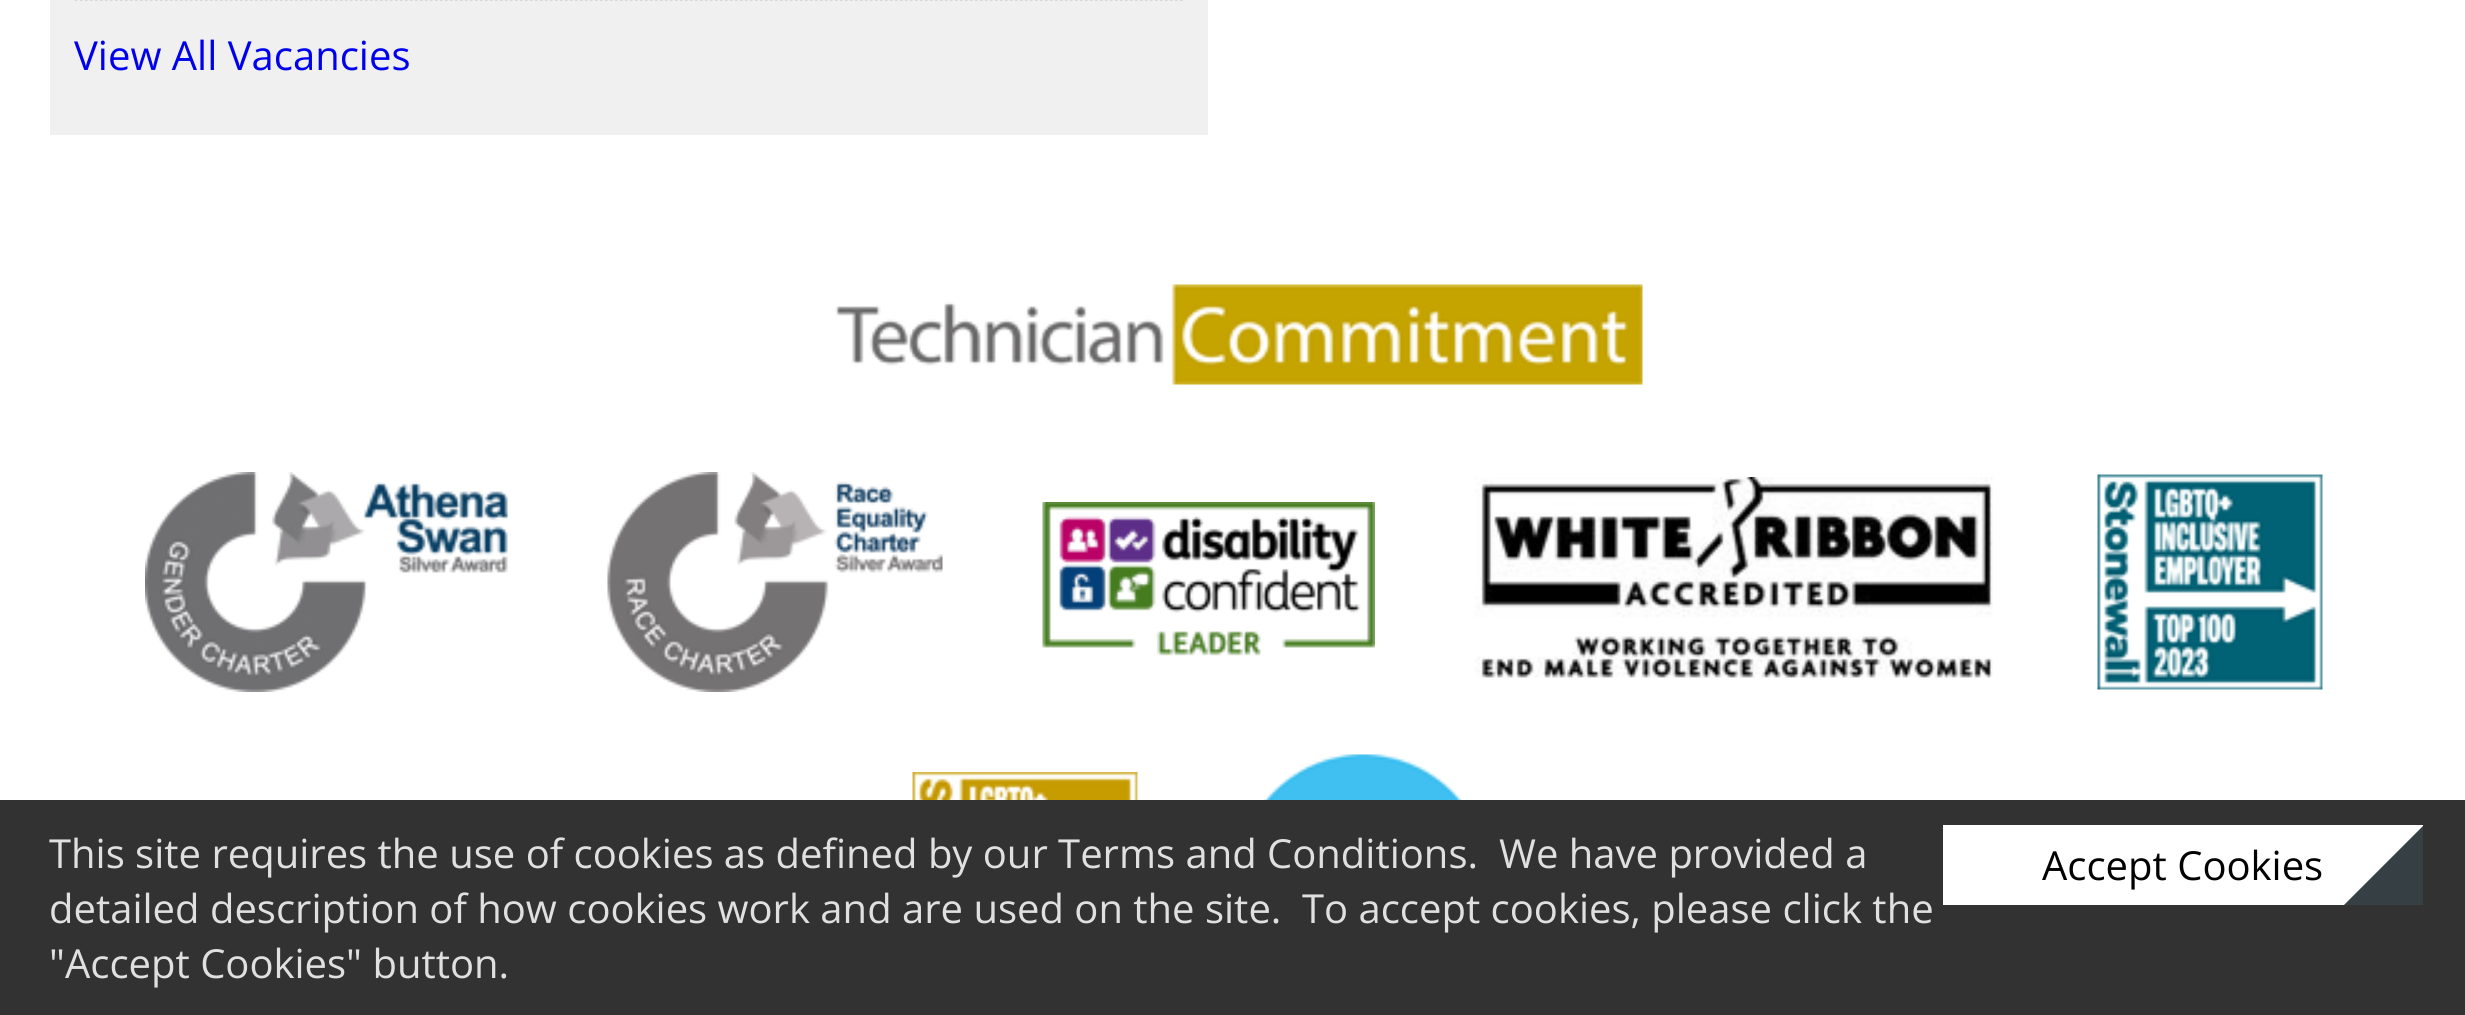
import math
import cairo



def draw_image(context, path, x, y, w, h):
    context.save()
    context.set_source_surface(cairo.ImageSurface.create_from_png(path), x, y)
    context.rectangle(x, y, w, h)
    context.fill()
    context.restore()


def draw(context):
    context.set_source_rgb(1, 1, 1)
    context.paint()
    context.set_source_rgb(240 / 255, 240 / 255, 240 / 255)
    context.rectangle(50, 0, 1158, 135)
    context.fill()
    context.new_path()
    context.move_to(75, -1)
    context.line_to(1182.5, -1)
    context.set_source_rgb(136 / 255, 136 / 255, 136 / 255)
    context.set_line_width(2.5)
    context.set_dash([2.5, 2.5])
    context.stroke()
    draw_image(context, "images/1.png", 835, 284, 808, 101)
    draw_image(context, "images/2.png", 145, 472, 363, 220)
    draw_image(context, "images/3.png", 607, 472, 336, 220)
    draw_image(context, "images/4.png", 1042, 502, 333, 154)
    draw_image(context, "images/5.png", 1475, 477, 518, 201)
    draw_image(context, "images/6.png", 2097, 474, 226, 216)
    draw_image(context, "images/7.png", 912, 772, 226, 28)
    draw_image(context, "images/8.png", 1237, 754, 318, 46)
    context.set_source_rgb(50 / 255, 50 / 255, 50 / 255)
    context.rectangle(0, 800, 2465, 215)
    context.fill()
    context.set_source_rgb(1, 1, 1)
    context.rectangle(1943, 825, 480, 80)
    context.fill()
    context.save()
    context.rectangle(1943, 825, 480, 80)
    context.clip()
    context.set_source_rgb(54 / 255, 63 / 255, 68 / 255)
    context.new_path()
    context.move_to(2424, 825)
    context.line_to(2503, 905)
    context.line_to(2424, 984)
    context.line_to(2344, 905)
    context.close_path()
    context.fill()
    context.restore()
    context.select_font_face("Open Sans")
    context.set_font_size(40)
    context.set_source_rgb(0, 0, 238 / 255)
    context.move_to(74, 70)
    context.show_text("View All Vacancies")
    context.set_source_rgb(224 / 255, 224 / 255, 224 / 255)
    context.move_to(49, 868)
    context.show_text("This site requires the use of cookies as defined by our Terms and Conditions.")
    context.move_to(1499, 868)
    context.show_text("We have provided a")
    context.move_to(49, 923)
    context.show_text("detailed description of how cookies work and are used on the site.")
    context.move_to(1302, 923)
    context.show_text("To accept cookies, please click the")
    context.move_to(49, 978)
    context.show_text("\"Accept Cookies\" button.")
    context.set_source_rgb(0, 0, 0)
    context.move_to(2042, 880)
    context.show_text("Accept Cookies")


surface = cairo.ImageSurface(cairo.Format.RGB24, 2465, 1015)
context = cairo.Context(surface)
options = cairo.FontOptions()
options.set_hint_metrics(cairo.HintMetrics.OFF)
options.set_hint_style(cairo.HintStyle.NONE)
context.set_font_options(options)
context.set_miter_limit(4)
draw(context)
surface.write_to_png("out.png")
